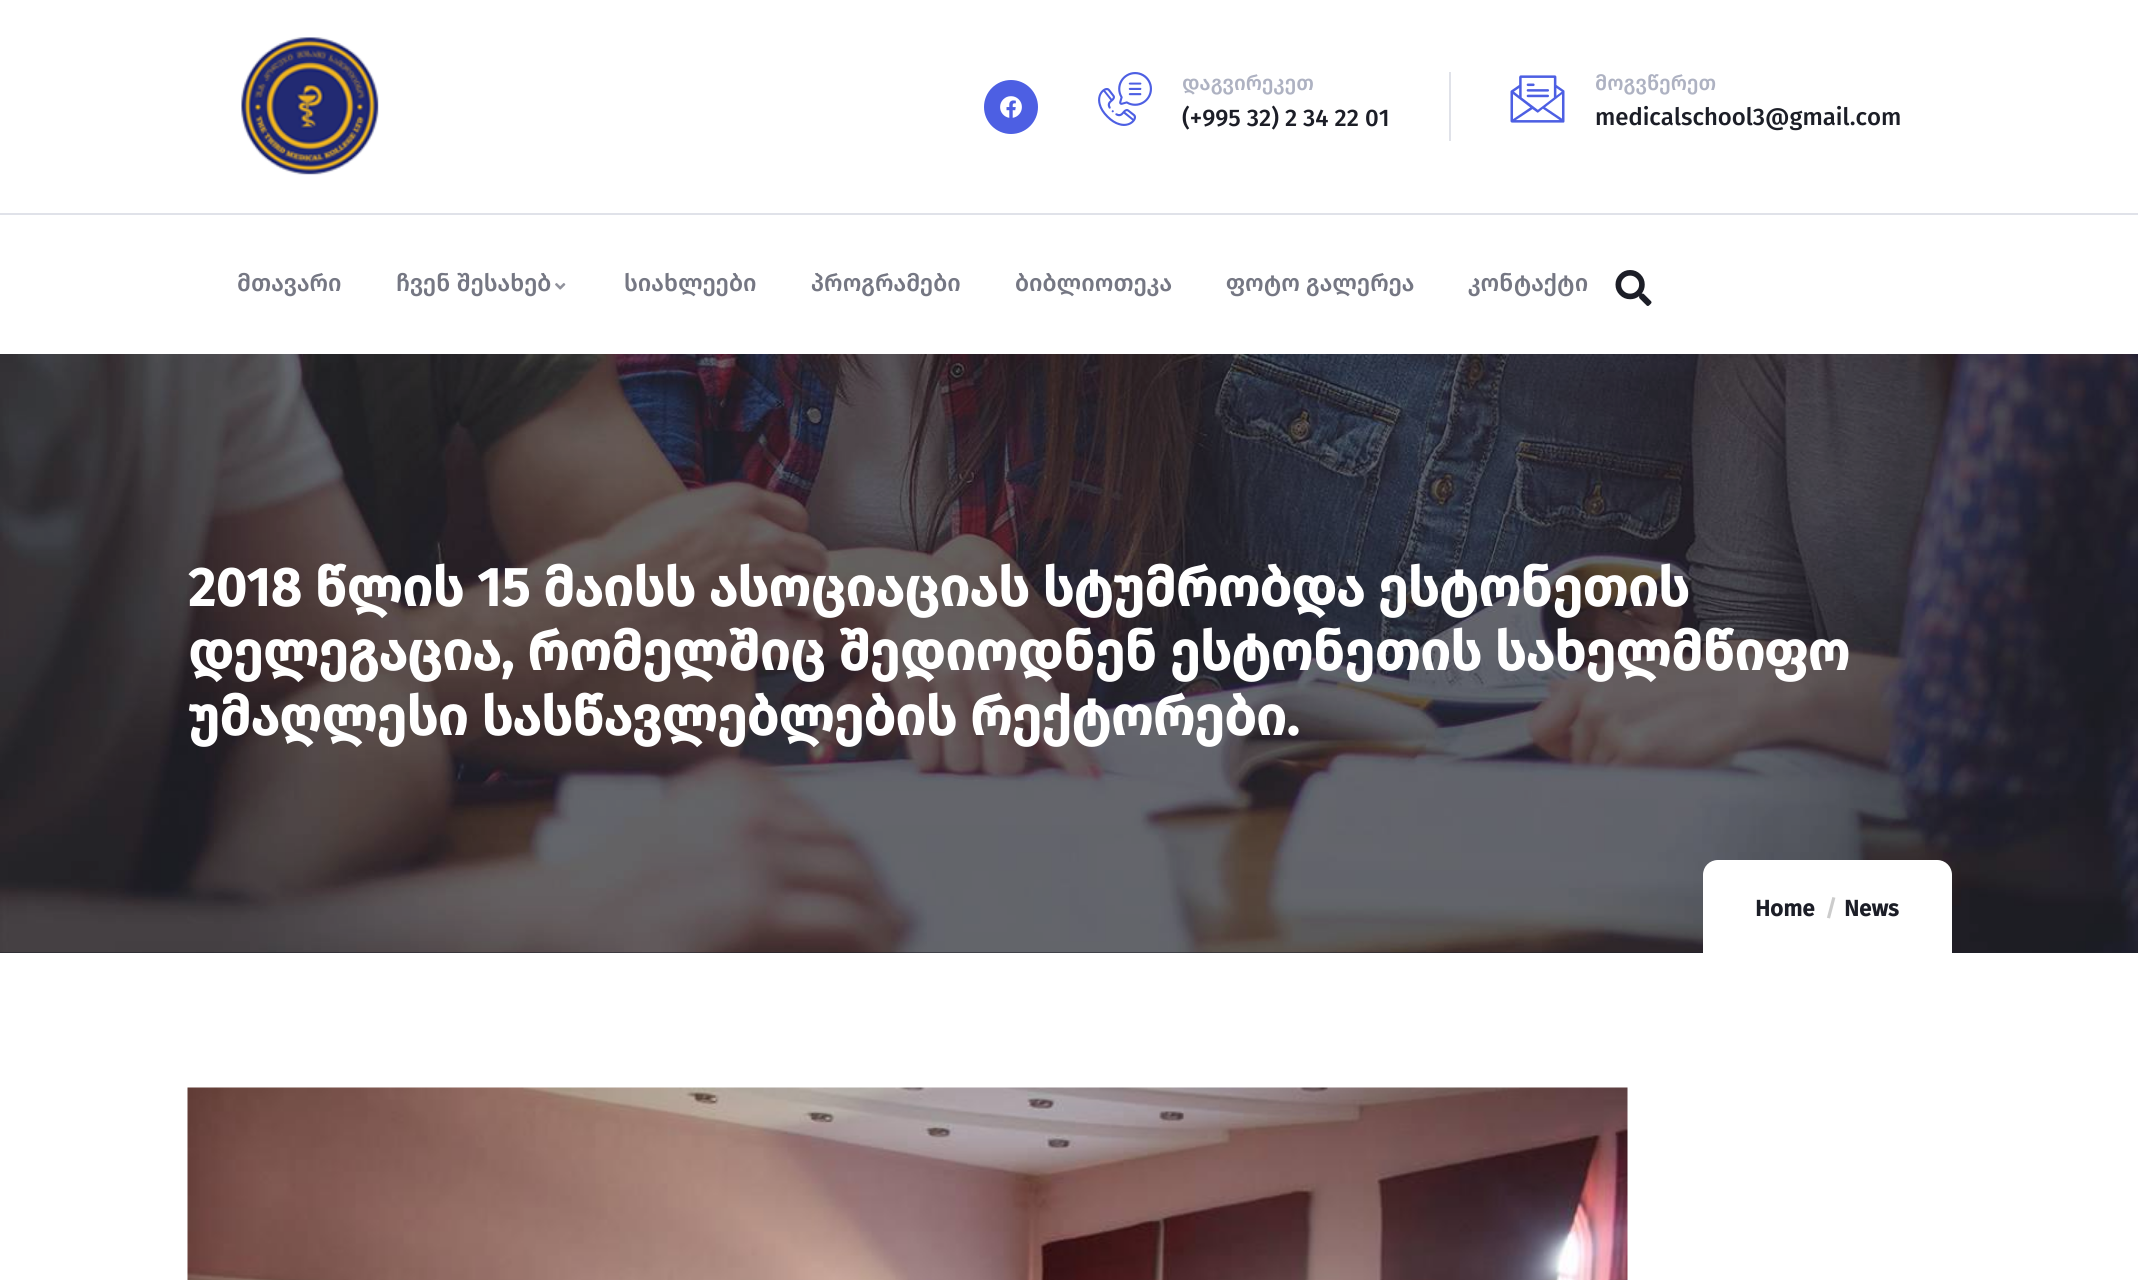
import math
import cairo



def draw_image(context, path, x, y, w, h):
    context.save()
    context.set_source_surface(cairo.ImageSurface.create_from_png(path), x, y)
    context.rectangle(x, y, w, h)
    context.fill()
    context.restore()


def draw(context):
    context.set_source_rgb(1, 1, 1)
    context.paint()
    context.set_source_rgb(224 / 255, 226 / 255, 233 / 255)
    context.rectangle(0, 213, 2138, 2)
    context.fill()
    draw_image(context, "images/1.png", 241, 37, 138, 138)
    context.set_source_rgb(77 / 255, 95 / 255, 227 / 255)
    context.arc(1011, 107, 27, 0, 2 * math.pi)
    context.fill()
    draw_image(context, "images/2.png", 1000, 96, 22, 22)
    context.set_source_rgb(224 / 255, 226 / 255, 233 / 255)
    context.rectangle(1449, 72, 2, 69)
    context.fill()
    draw_image(context, "images/3.png", 1098, 72, 54, 54)
    draw_image(context, "images/4.png", 1510, 75, 55, 48)
    draw_image(context, "images/5.png", 555, 283, 11, 7)
    draw_image(context, "images/6.png", 1615, 270, 37, 36)
    context.set_source_rgb(28 / 255, 30 / 255, 40 / 255)
    context.rectangle(0, 952, 2138, 1)
    context.fill()
    draw_image(context, "images/7.png", 0, 354, 2138, 599)
    context.set_source_rgb(1, 1, 1)
    context.new_path()
    context.move_to(1718, 860)
    context.line_to(1937, 860)
    context.curve_to(1945.5, 860, 1952, 866.5, 1952, 875)
    context.line_to(1952, 953)
    context.line_to(1703, 953)
    context.line_to(1703, 875)
    context.curve_to(1703, 866.5, 1709.5, 860, 1718, 860)
    context.close_path()
    context.fill()
    draw_image(context, "images/8.png", 187, 1087, 1441, 193)
    context.select_font_face("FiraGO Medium")
    context.set_font_size(21)
    context.set_source_rgb(174 / 255, 178 / 255, 194 / 255)
    context.move_to(1182, 90)
    context.show_text("დაგვირეკეთ")
    context.set_font_size(24)
    context.set_source_rgb(28 / 255, 30 / 255, 39 / 255)
    context.move_to(1182, 126)
    context.show_text("(+995 32) 2 34 22 01")
    context.set_font_size(21)
    context.set_source_rgb(174 / 255, 178 / 255, 194 / 255)
    context.move_to(1595, 90)
    context.show_text("მოგვწერეთ")
    context.set_font_size(24)
    context.set_source_rgb(28 / 255, 30 / 255, 39 / 255)
    context.move_to(1595, 125)
    context.show_text("medicalschool3@gmail.com")
    context.set_source_rgb(117 / 255, 119 / 255, 131 / 255)
    context.move_to(237, 291)
    context.show_text("მთავარი")
    context.move_to(396, 291)
    context.show_text("ჩვენ შესახებ")
    context.move_to(624, 291)
    context.show_text("სიახლეები")
    context.move_to(811, 291)
    context.show_text("პროგრამები")
    context.move_to(1015, 291)
    context.show_text("ბიბლიოთეკა")
    context.move_to(1226, 291)
    context.show_text("ფოტო გალერეა")
    context.move_to(1468, 291)
    context.show_text("კონტაქტი")
    context.select_font_face("FiraGO", cairo.FontSlant.NORMAL, cairo.FontWeight.BOLD)
    context.set_font_size(54)
    context.set_source_rgb(1, 1, 1)
    context.move_to(188, 606)
    context.show_text("2018 წლის 15 მაისს ასოციაციას სტუმრობდა ესტონეთის")
    context.move_to(188, 670)
    context.show_text("დელეგაცია, რომელშიც შედიოდნენ ესტონეთის სახელმწიფო")
    context.move_to(188, 735)
    context.show_text("უმაღლესი სასწავლებლების რექტორები.")
    context.set_font_size(22.5)
    context.set_source_rgb(28 / 255, 30 / 255, 39 / 255)
    context.move_to(1755, 916)
    context.show_text("Home")
    context.set_source_rgb(204 / 255, 204 / 255, 204 / 255)
    context.move_to(1825, 916)
    context.show_text("/")
    context.set_source_rgb(28 / 255, 30 / 255, 39 / 255)
    context.move_to(1844, 916)
    context.show_text("News")


surface = cairo.ImageSurface(cairo.Format.RGB24, 2138, 1280)
context = cairo.Context(surface)
options = cairo.FontOptions()
options.set_hint_metrics(cairo.HintMetrics.OFF)
options.set_hint_style(cairo.HintStyle.NONE)
context.set_font_options(options)
context.set_miter_limit(4)
draw(context)
surface.write_to_png("out.png")
